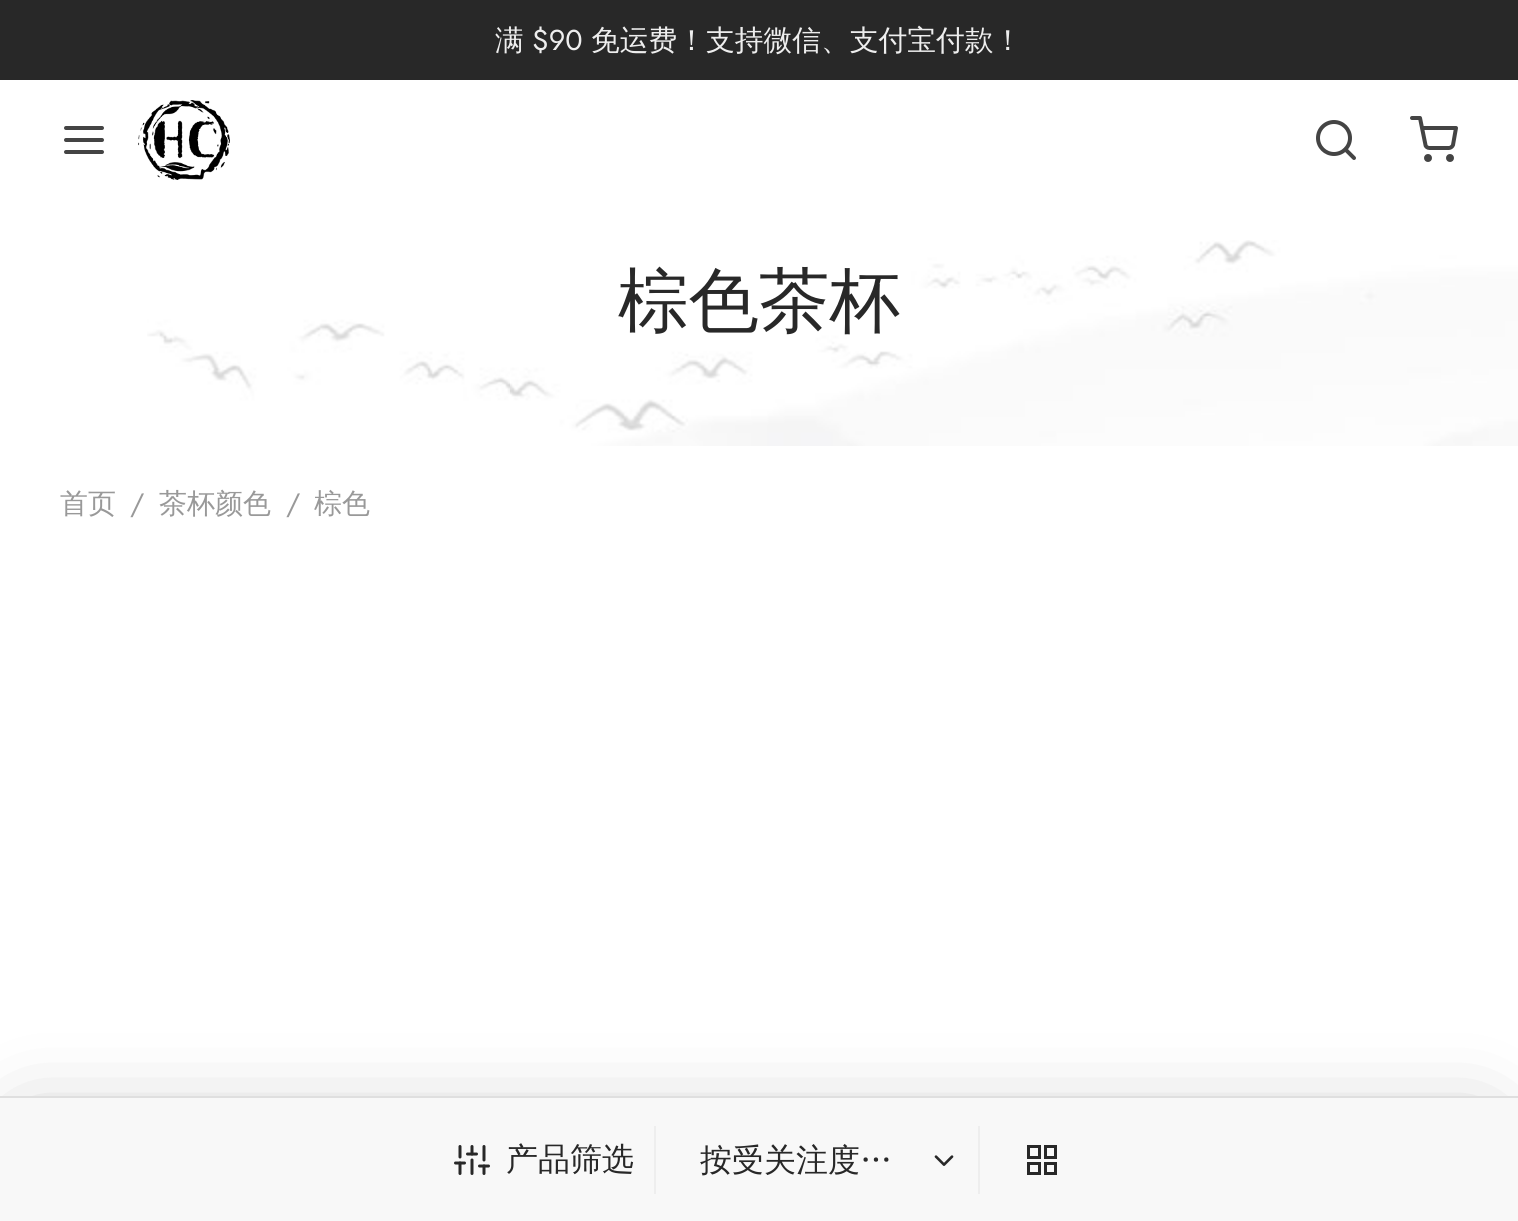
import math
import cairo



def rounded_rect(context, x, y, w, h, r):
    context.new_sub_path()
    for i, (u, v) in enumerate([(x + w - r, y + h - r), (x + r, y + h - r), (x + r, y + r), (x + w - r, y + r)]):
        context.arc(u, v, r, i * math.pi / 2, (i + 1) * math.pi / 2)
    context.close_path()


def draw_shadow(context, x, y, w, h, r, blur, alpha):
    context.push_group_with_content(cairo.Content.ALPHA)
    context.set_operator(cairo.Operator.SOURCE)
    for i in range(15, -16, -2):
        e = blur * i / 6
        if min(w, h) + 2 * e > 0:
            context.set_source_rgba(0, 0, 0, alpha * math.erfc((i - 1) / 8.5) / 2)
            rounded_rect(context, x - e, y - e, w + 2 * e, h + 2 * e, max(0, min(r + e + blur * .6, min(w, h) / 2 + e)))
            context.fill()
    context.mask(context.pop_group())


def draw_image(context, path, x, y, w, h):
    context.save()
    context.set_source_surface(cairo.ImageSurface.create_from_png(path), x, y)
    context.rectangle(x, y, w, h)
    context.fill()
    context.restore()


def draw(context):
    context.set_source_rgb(1, 1, 1)
    context.paint()
    context.set_source_rgb(40 / 255, 40 / 255, 40 / 255)
    context.rectangle(0, 0, 1518, 80)
    context.fill()
    context.new_path()
    context.move_to(66, 140)
    context.line_to(102, 140)
    context.move_to(66, 128)
    context.line_to(102, 128)
    context.move_to(66, 152)
    context.line_to(102, 152)
    context.set_source_rgb(68 / 255, 68 / 255, 68 / 255)
    context.set_line_width(4)
    context.set_line_cap(cairo.LineCap.ROUND)
    context.set_line_join(cairo.LineJoin.ROUND)
    context.stroke()
    draw_image(context, "images/1.png", 138, 100, 92, 80)
    context.arc(1334, 138, 16, 0, 2 * math.pi)
    context.set_line_cap(cairo.LineCap.BUTT)
    context.set_line_join(cairo.LineJoin.MITER)
    context.stroke()
    context.new_path()
    context.move_to(1354, 158)
    context.line_to(1345.5, 149.5)
    context.set_line_cap(cairo.LineCap.ROUND)
    context.set_line_join(cairo.LineJoin.ROUND)
    context.stroke()
    context.arc(1428, 158, 2, 0, 2 * math.pi)
    context.set_line_cap(cairo.LineCap.BUTT)
    context.set_line_join(cairo.LineJoin.MITER)
    context.stroke()
    context.arc(1450, 158, 2, 0, 2 * math.pi)
    context.stroke()
    context.new_path()
    context.move_to(1412, 118)
    context.line_to(1420, 118)
    context.line_to(1425.5, 145)
    context.curve_to(1425.5, 146.5, 1427.5, 148, 1429.5, 148)
    context.line_to(1449, 148)
    context.curve_to(1450.5, 148, 1452.5, 146.5, 1453, 145)
    context.line_to(1456, 128)
    context.line_to(1422, 128)
    context.set_line_cap(cairo.LineCap.ROUND)
    context.set_line_join(cairo.LineJoin.ROUND)
    context.stroke()
    draw_image(context, "images/2.png", 147, 240, 1371, 206)
    context.set_source_rgb(0, 0, 0)
    draw_shadow(context, 26, 1130, 1458, 66, 0, 45, 0.3)
    context.set_source_rgb(248 / 255, 248 / 255, 248 / 255)
    context.rectangle(0, 1098, 1518, 123)
    context.fill()
    context.set_source_rgb(223 / 255, 223 / 255, 223 / 255)
    context.rectangle(0, 1096, 1518, 2)
    context.fill()
    context.set_source_rgb(238 / 255, 238 / 255, 238 / 255)
    context.rectangle(654, 1126, 2, 68)
    context.fill()
    draw_image(context, "images/3.png", 454, 1145, 36, 30)
    draw_image(context, "images/4.png", 934, 1155, 20, 11)
    context.rectangle(978, 1126, 2, 68)
    context.fill()
    context.rectangle(1028.5, 1146.5, 11, 11)
    context.set_source_rgb(40 / 255, 40 / 255, 40 / 255)
    context.set_line_width(3)
    context.set_line_cap(cairo.LineCap.BUTT)
    context.set_line_join(cairo.LineJoin.MITER)
    context.stroke()
    context.rectangle(1045.5, 1146.5, 10, 11)
    context.stroke()
    context.rectangle(1028.5, 1163.5, 11, 10)
    context.stroke()
    context.rectangle(1045.5, 1163.5, 10, 10)
    context.stroke()
    context.select_font_face("WenQuanYi Zen Hei Medium")
    context.set_font_size(28.75)
    context.set_source_rgb(238 / 255, 238 / 255, 238 / 255)
    context.move_to(495, 50)
    context.show_text("满")
    context.select_font_face("Jost")
    context.move_to(532, 50)
    context.show_text("$90")
    context.select_font_face("WenQuanYi Zen Hei Medium")
    context.move_to(591, 50)
    context.show_text("免运费！支持微信、支付宝付款！")
    context.set_font_size(70.5)
    context.set_source_rgb(40 / 255, 40 / 255, 40 / 255)
    context.move_to(618, 325)
    context.show_text("棕色茶杯")
    context.set_font_size(28)
    context.set_source_rgb(153 / 255, 153 / 255, 153 / 255)
    context.move_to(60, 513)
    context.show_text("首页")
    context.select_font_face("Jost")
    context.move_to(130, 513)
    context.show_text("/")
    context.select_font_face("WenQuanYi Zen Hei Medium")
    context.move_to(159, 513)
    context.show_text("茶杯颜色")
    context.select_font_face("Jost")
    context.move_to(286, 513)
    context.show_text("/")
    context.select_font_face("WenQuanYi Zen Hei Medium")
    context.move_to(314, 513)
    context.show_text("棕色")
    context.set_font_size(32)
    context.set_source_rgb(40 / 255, 40 / 255, 40 / 255)
    context.move_to(506, 1170)
    context.show_text("产品筛选")
    context.move_to(700, 1171)
    context.show_text("按受关注度…")


surface = cairo.ImageSurface(cairo.Format.RGB24, 1518, 1221)
context = cairo.Context(surface)
options = cairo.FontOptions()
options.set_hint_metrics(cairo.HintMetrics.OFF)
options.set_hint_style(cairo.HintStyle.NONE)
context.set_font_options(options)
context.set_miter_limit(4)
draw(context)
surface.write_to_png("out.png")
